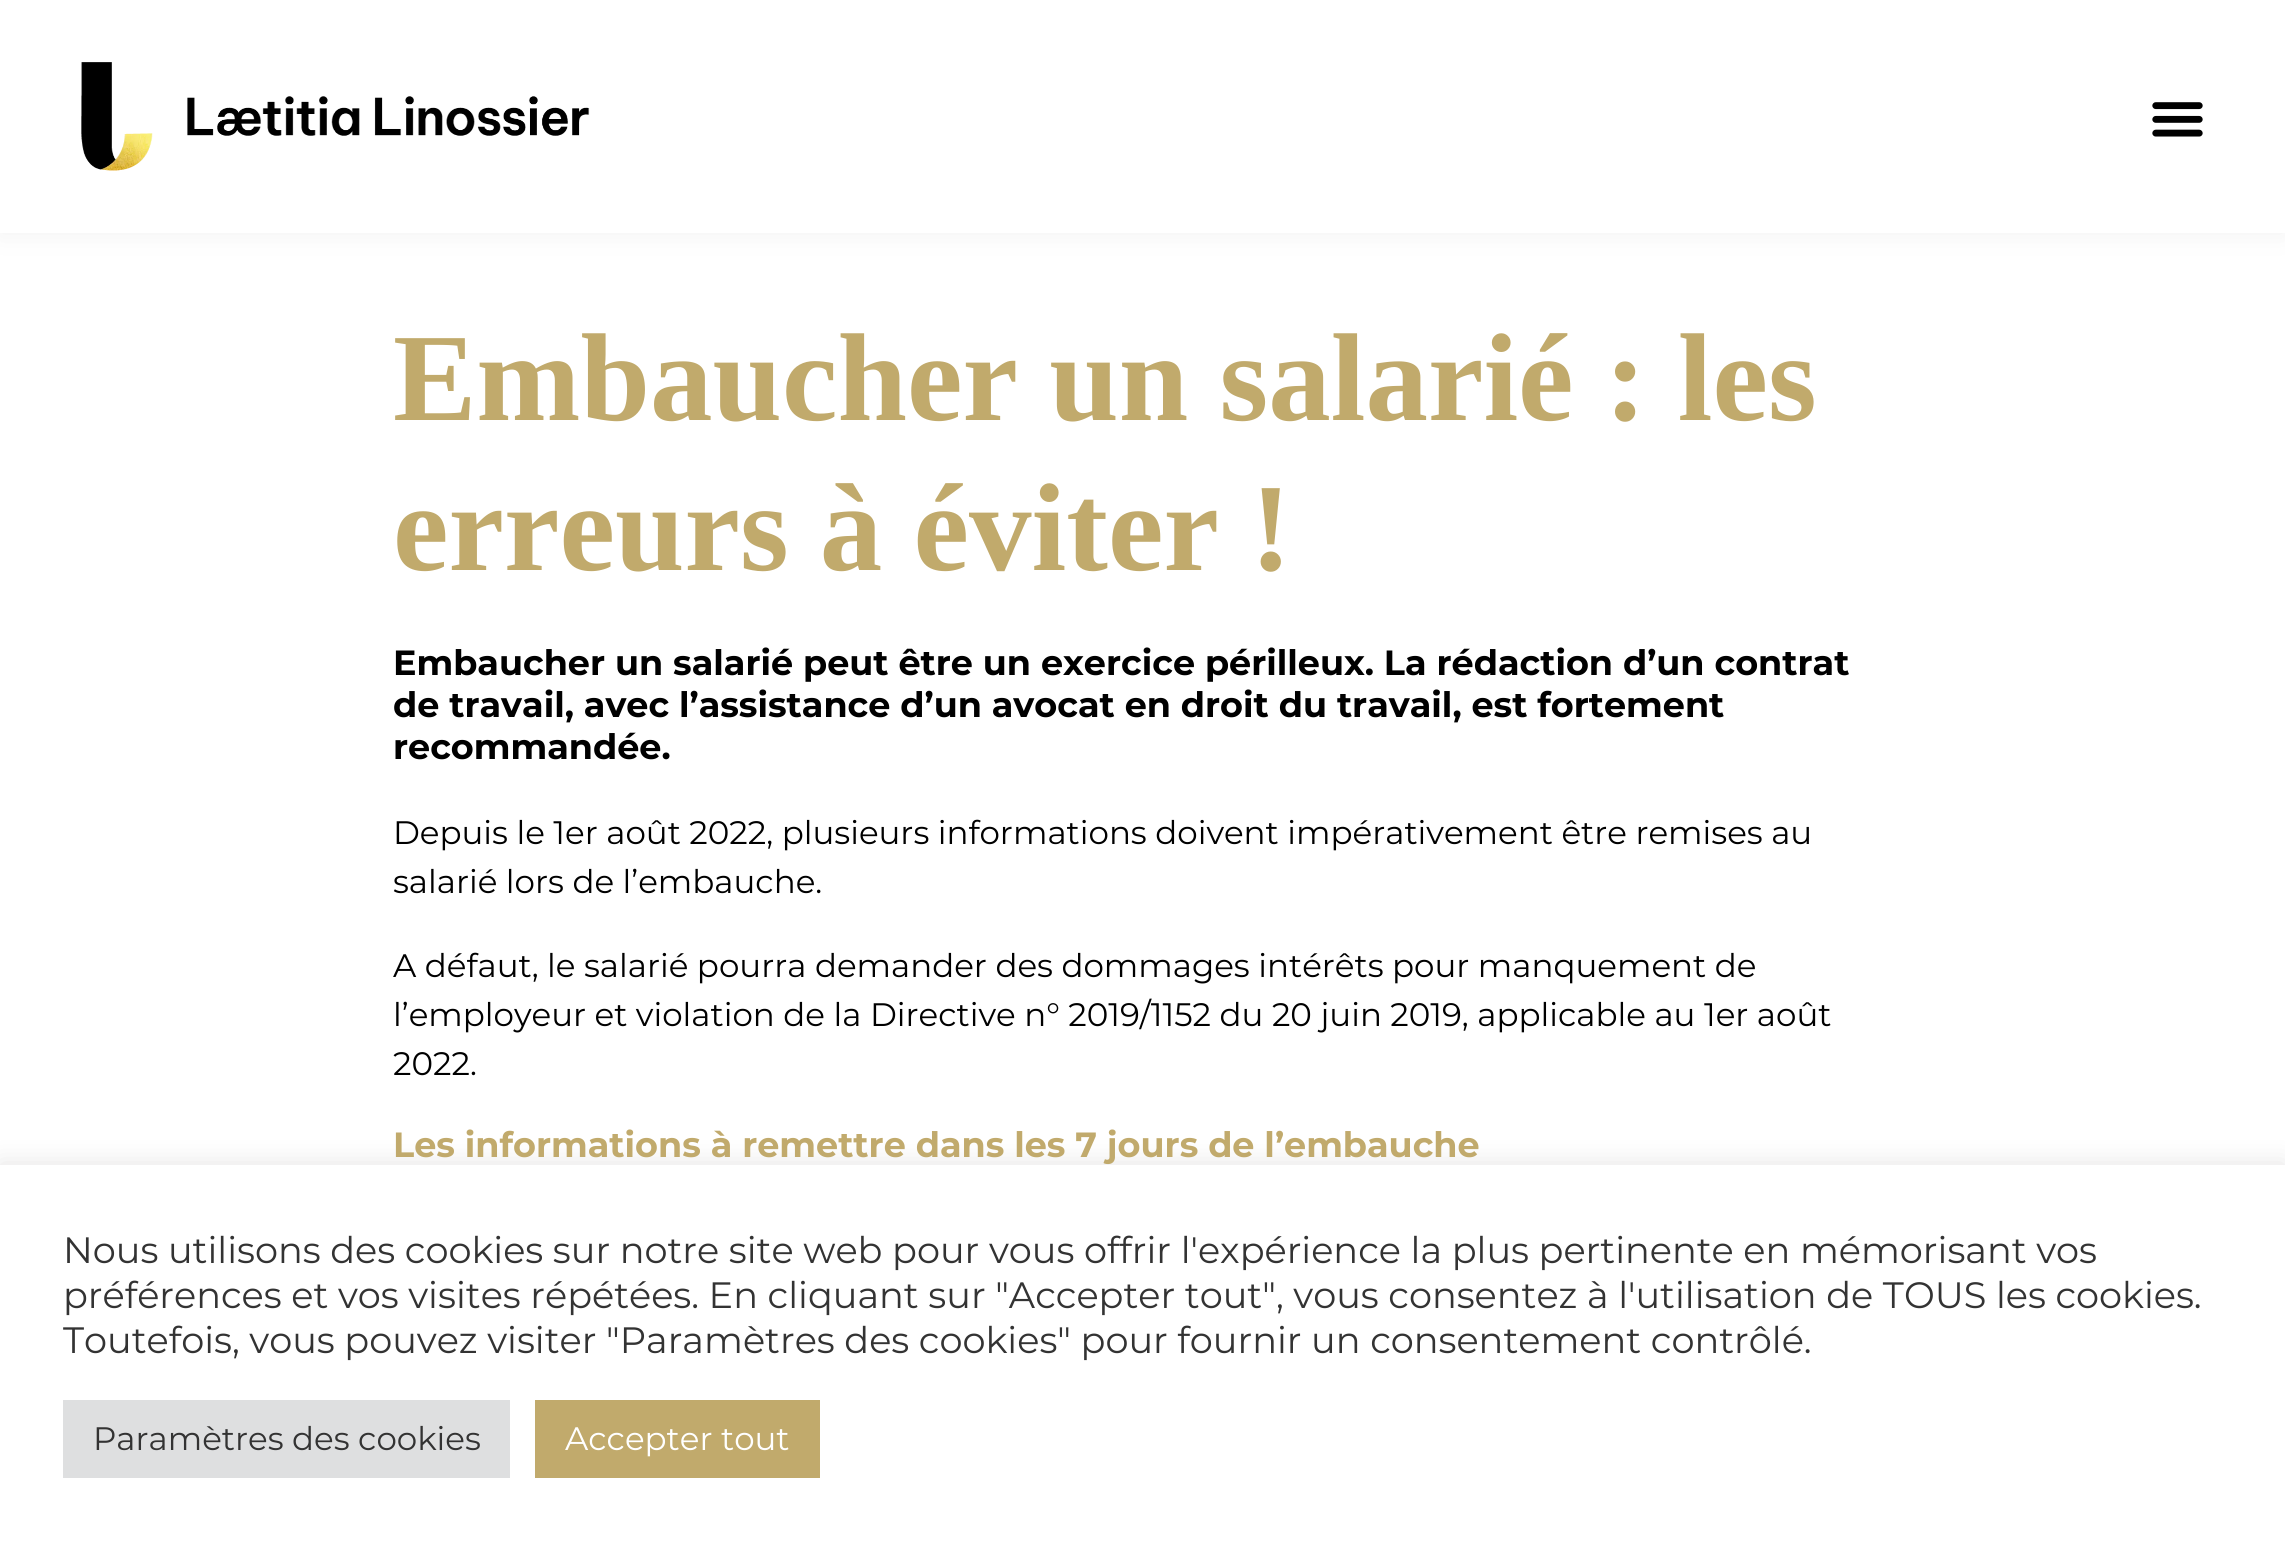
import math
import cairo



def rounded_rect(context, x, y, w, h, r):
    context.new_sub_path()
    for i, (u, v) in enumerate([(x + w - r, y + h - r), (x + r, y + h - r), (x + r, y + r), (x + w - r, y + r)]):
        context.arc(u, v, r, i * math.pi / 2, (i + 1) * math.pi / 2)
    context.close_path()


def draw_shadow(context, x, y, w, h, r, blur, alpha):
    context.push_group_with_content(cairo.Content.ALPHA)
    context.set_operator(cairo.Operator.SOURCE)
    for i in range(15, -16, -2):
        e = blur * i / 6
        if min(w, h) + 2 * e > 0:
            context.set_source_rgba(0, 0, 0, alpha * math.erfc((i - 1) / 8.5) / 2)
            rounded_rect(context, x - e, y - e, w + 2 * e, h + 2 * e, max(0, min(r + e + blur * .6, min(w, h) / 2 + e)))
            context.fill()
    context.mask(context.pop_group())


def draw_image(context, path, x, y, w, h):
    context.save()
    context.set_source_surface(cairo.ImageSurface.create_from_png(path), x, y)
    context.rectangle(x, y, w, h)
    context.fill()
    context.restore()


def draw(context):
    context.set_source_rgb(1, 1, 1)
    context.paint()
    context.set_source_rgb(227 / 255, 227 / 255, 227 / 255)
    draw_shadow(context, 0, 0, 2285, 233, 0, 12.5, 0.5)
    context.set_source_rgb(1, 1, 1)
    context.rectangle(0, 0, 2285, 233)
    context.fill()
    draw_image(context, "images/1.png", 81, 62, 509, 109)
    draw_image(context, "images/2.png", 2152, 102, 51, 35)
    context.set_source_rgb(172 / 255, 171 / 255, 171 / 255)
    draw_shadow(context, 0, 1163, 2285, 387, 0, 12.5, 0.3)
    context.set_source_rgb(1, 1, 1)
    context.rectangle(0, 1165, 2285, 386)
    context.fill()
    context.set_source_rgb(222 / 255, 223 / 255, 224 / 255)
    context.rectangle(63, 1400, 447, 78)
    context.fill()
    context.set_source_rgb(193 / 255, 170 / 255, 108 / 255)
    context.rectangle(535, 1400, 285, 78)
    context.fill()
    context.select_font_face("Liberation Serif", cairo.FontSlant.NORMAL, cairo.FontWeight.BOLD)
    context.set_font_size(125)
    context.move_to(393, 420)
    context.show_text("Embaucher un salarié : les")
    context.move_to(393, 570)
    context.show_text("erreurs à éviter !")
    context.select_font_face("Montserrat", cairo.FontSlant.NORMAL, cairo.FontWeight.BOLD)
    context.set_font_size(35)
    context.set_source_rgb(0, 0, 0)
    context.move_to(393, 675)
    context.show_text("Embaucher un salarié peut être un exercice périlleux. La rédaction d’un contrat")
    context.move_to(393, 717)
    context.show_text("de travail, avec l’assistance d’un avocat en droit du travail, est fortement")
    context.move_to(393, 759)
    context.show_text("recommandée.")
    context.select_font_face("Montserrat")
    context.set_font_size(32.5)
    context.move_to(393, 844)
    context.show_text("Depuis le 1er août 2022, plusieurs informations doivent impérativement être remises au")
    context.move_to(393, 893)
    context.show_text("salarié lors de l’embauche.")
    context.move_to(393, 977)
    context.show_text("A défaut, le salarié pourra demander des dommages intérêts pour manquement de")
    context.move_to(393, 1026)
    context.show_text("l’employeur et violation de la Directive n° 2019/1152 du 20 juin 2019, applicable au 1er août")
    context.move_to(393, 1075)
    context.show_text("2022.")
    context.select_font_face("Montserrat", cairo.FontSlant.NORMAL, cairo.FontWeight.BOLD)
    context.set_font_size(35)
    context.set_source_rgb(193 / 255, 170 / 255, 108 / 255)
    context.move_to(393, 1157)
    context.show_text("Les informations à remettre dans les 7 jours de l’embauche")
    context.select_font_face("Montserrat")
    context.set_font_size(36.67)
    context.set_source_rgb(51 / 255, 51 / 255, 51 / 255)
    context.move_to(63, 1263)
    context.show_text("Nous utilisons des cookies sur notre site web pour vous offrir l'expérience la plus pertinente en mémorisant vos")
    context.move_to(63, 1308)
    context.show_text("préférences et vos visites répétées. En cliquant sur \"Accepter tout\", vous consentez à l'utilisation de TOUS les cookies.")
    context.move_to(63, 1353)
    context.show_text("Toutefois, vous pouvez visiter \"Paramètres des cookies\" pour fournir un consentement contrôlé.")
    context.set_font_size(32.5)
    context.move_to(93, 1450)
    context.show_text("Paramètres des cookies")
    context.set_source_rgb(1, 1, 1)
    context.move_to(565, 1450)
    context.show_text("Accepter tout")


surface = cairo.ImageSurface(cairo.Format.RGB24, 2285, 1551)
context = cairo.Context(surface)
options = cairo.FontOptions()
options.set_hint_metrics(cairo.HintMetrics.OFF)
options.set_hint_style(cairo.HintStyle.NONE)
context.set_font_options(options)
context.set_miter_limit(4)
draw(context)
surface.write_to_png("out.png")
